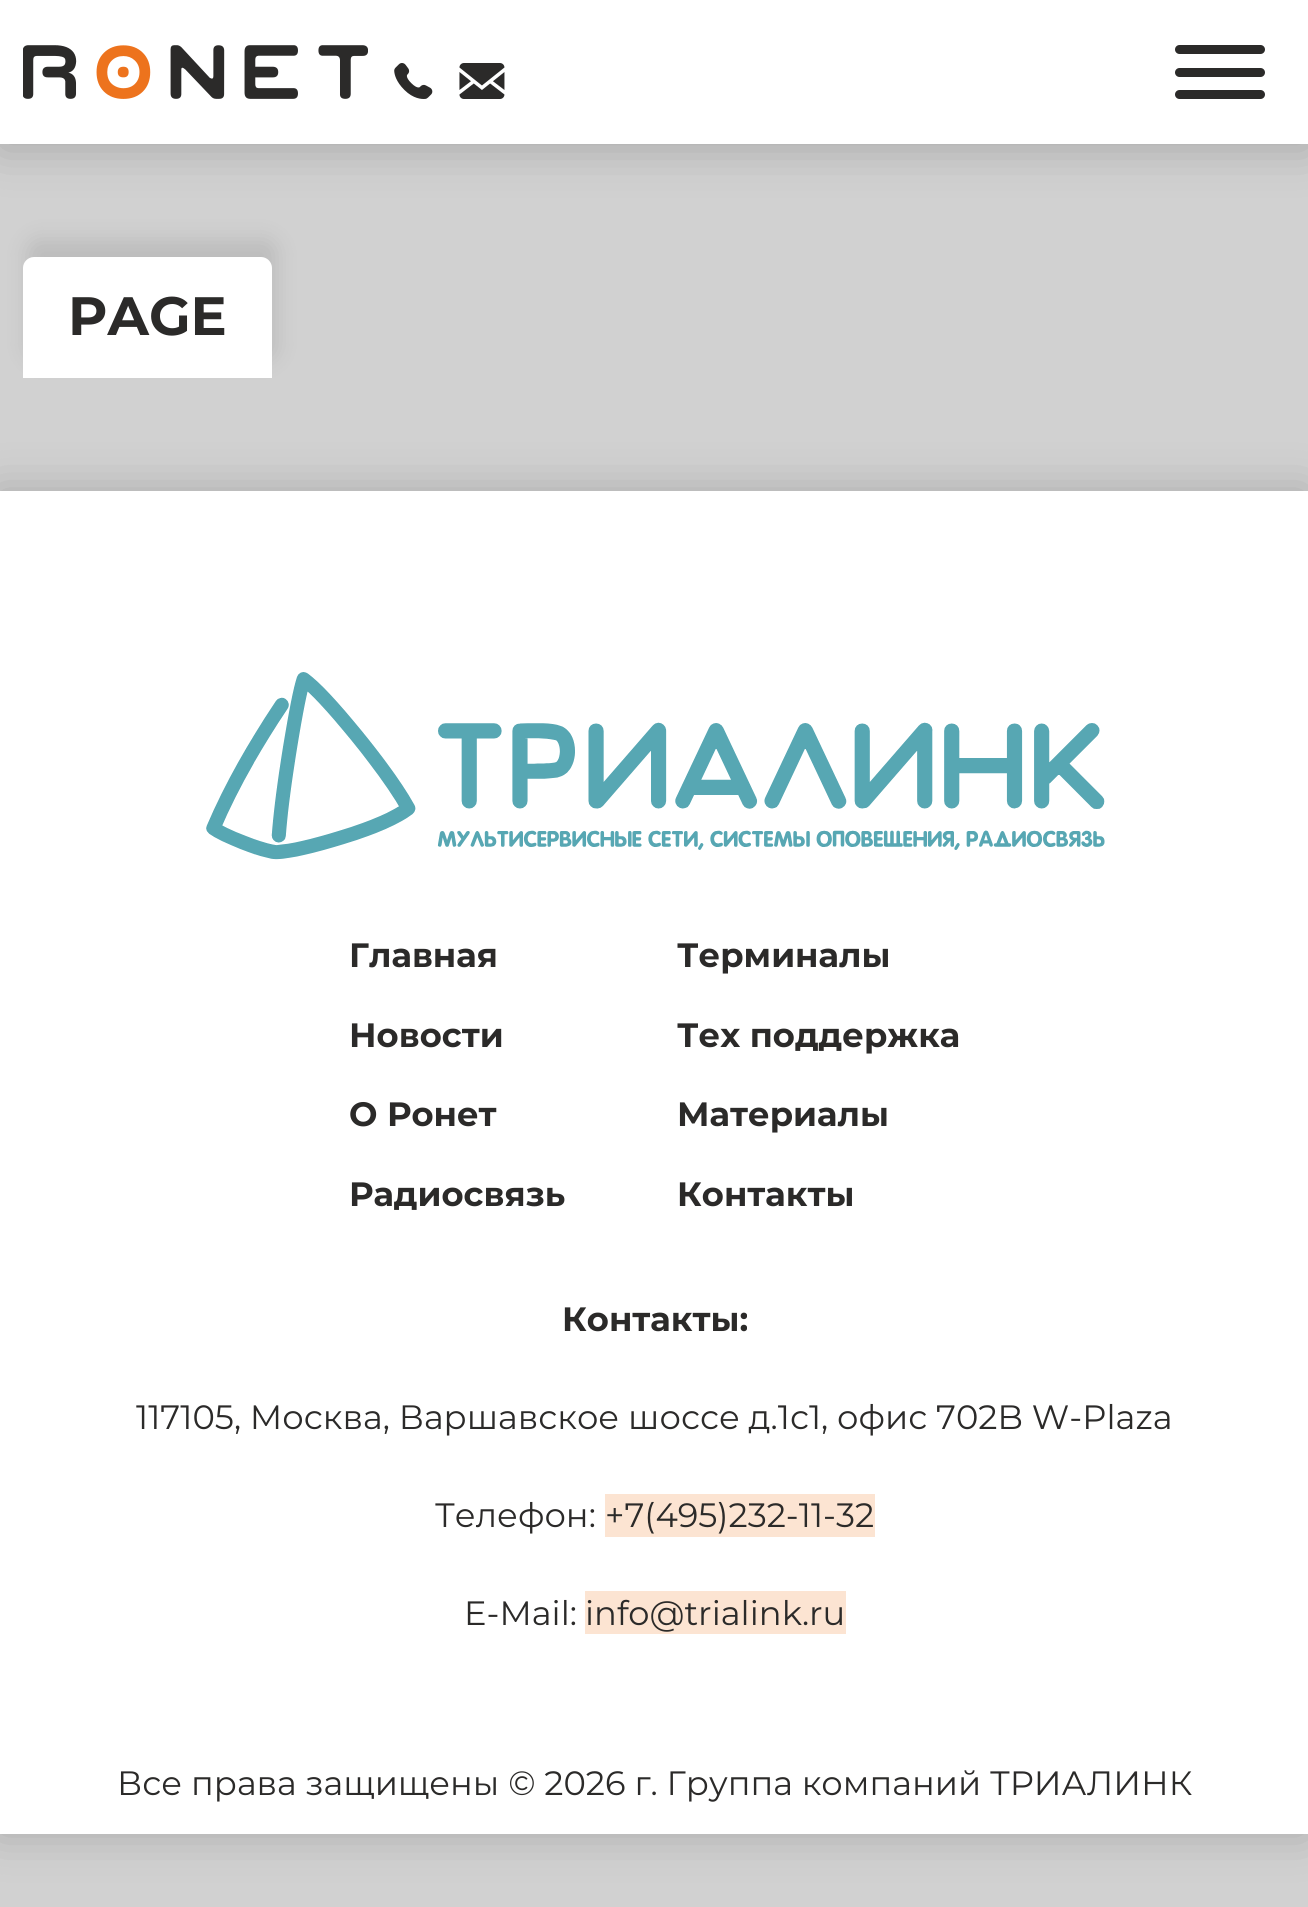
import math
import cairo



def rounded_rect(context, x, y, w, h, r):
    context.new_sub_path()
    for i, (u, v) in enumerate([(x + w - r, y + h - r), (x + r, y + h - r), (x + r, y + r), (x + w - r, y + r)]):
        context.arc(u, v, r, i * math.pi / 2, (i + 1) * math.pi / 2)
    context.close_path()


def draw_shadow(context, x, y, w, h, r, blur, alpha):
    context.push_group_with_content(cairo.Content.ALPHA)
    context.set_operator(cairo.Operator.SOURCE)
    for i in range(15, -16, -2):
        e = blur * i / 6
        if min(w, h) + 2 * e > 0:
            context.set_source_rgba(0, 0, 0, alpha * math.erfc((i - 1) / 8.5) / 2)
            rounded_rect(context, x - e, y - e, w + 2 * e, h + 2 * e, max(0, min(r + e + blur * .6, min(w, h) / 2 + e)))
            context.fill()
    context.mask(context.pop_group())


def draw_image(context, path, x, y, w, h):
    context.save()
    context.set_source_surface(cairo.ImageSurface.create_from_png(path), x, y)
    context.rectangle(x, y, w, h)
    context.fill()
    context.restore()


def draw(context):
    context.set_source_rgb(209 / 255, 209 / 255, 209 / 255)
    context.paint()
    context.set_source_rgb(0, 0, 0)
    draw_shadow(context, 0, 5, 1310, 144, 0, 22.5, 0.2)
    context.set_source_rgb(1, 1, 1)
    context.rectangle(0, 0, 1308, 144)
    context.fill()
    draw_image(context, "images/1.png", 23, 45, 345, 54)
    draw_image(context, "images/2.png", 394, 63, 39, 36)
    draw_image(context, "images/3.png", 459, 63, 46, 36)
    context.set_source_rgb(43 / 255, 42 / 255, 41 / 255)
    rounded_rect(context, 1175, 68, 90, 9, 4.5)
    context.fill()
    rounded_rect(context, 1175, 45, 90, 9, 4.5)
    context.fill()
    rounded_rect(context, 1175, 90, 90, 9, 4.5)
    context.fill()
    context.set_source_rgb(0, 0, 0)
    draw_shadow(context, 27, 239, 250, 121, 11, 11, 0.1)
    context.set_source_rgb(1, 1, 1)
    context.new_path()
    context.move_to(34, 257)
    context.line_to(261, 257)
    context.curve_to(267, 257, 272, 262, 272, 268)
    context.line_to(272, 378)
    context.line_to(23, 378)
    context.line_to(23, 268)
    context.curve_to(23, 262, 28, 257, 34, 257)
    context.close_path()
    context.fill()
    context.set_source_rgb(0, 0, 0)
    draw_shadow(context, -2, 491, 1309, 1343, 0, 22.5, 0.2)
    context.set_source_rgb(1, 1, 1)
    context.rectangle(0, 491, 1308, 1343)
    context.fill()
    draw_image(context, "images/4.png", 206, 672, 899, 188)
    context.set_source_rgb(252 / 255, 228 / 255, 210 / 255)
    context.rectangle(605, 1494, 270, 43)
    context.fill()
    context.rectangle(585, 1591, 261, 43)
    context.fill()
    context.select_font_face("Montserrat", cairo.FontSlant.NORMAL, cairo.FontWeight.BOLD)
    context.set_font_size(54)
    context.set_source_rgb(43 / 255, 42 / 255, 41 / 255)
    context.move_to(68, 335)
    context.show_text("PAGE")
    context.set_font_size(33.75)
    context.move_to(349, 967)
    context.show_text("Главная")
    context.move_to(349, 1047)
    context.show_text("Новости")
    context.move_to(349, 1126)
    context.show_text("О Ронет")
    context.move_to(349, 1206)
    context.show_text("Радиосвязь")
    context.move_to(677, 967)
    context.show_text("Терминалы")
    context.move_to(677, 1047)
    context.show_text("Тех поддержка")
    context.move_to(677, 1126)
    context.show_text("Материалы")
    context.move_to(677, 1206)
    context.show_text("Контакты")
    context.move_to(562, 1331)
    context.show_text("Контакты:")
    context.select_font_face("Montserrat")
    context.move_to(136, 1429)
    context.show_text("117105, Москва, Варшавское шоссе д.1с1, офис 702B W-Plaza")
    context.move_to(435, 1527)
    context.show_text("Телефон:")
    context.move_to(605, 1527)
    context.show_text("+7(495)232-11-32")
    context.move_to(464, 1625)
    context.show_text("E-Mail:")
    context.move_to(585, 1625)
    context.show_text("info@trialink.ru")
    context.move_to(117, 1795)
    context.show_text("Все права защищены © 2026 г. Группа компаний ТРИАЛИНК")


surface = cairo.ImageSurface(cairo.Format.RGB24, 1308, 1907)
context = cairo.Context(surface)
options = cairo.FontOptions()
options.set_hint_metrics(cairo.HintMetrics.OFF)
options.set_hint_style(cairo.HintStyle.NONE)
context.set_font_options(options)
context.set_miter_limit(4)
draw(context)
surface.write_to_png("out.png")
